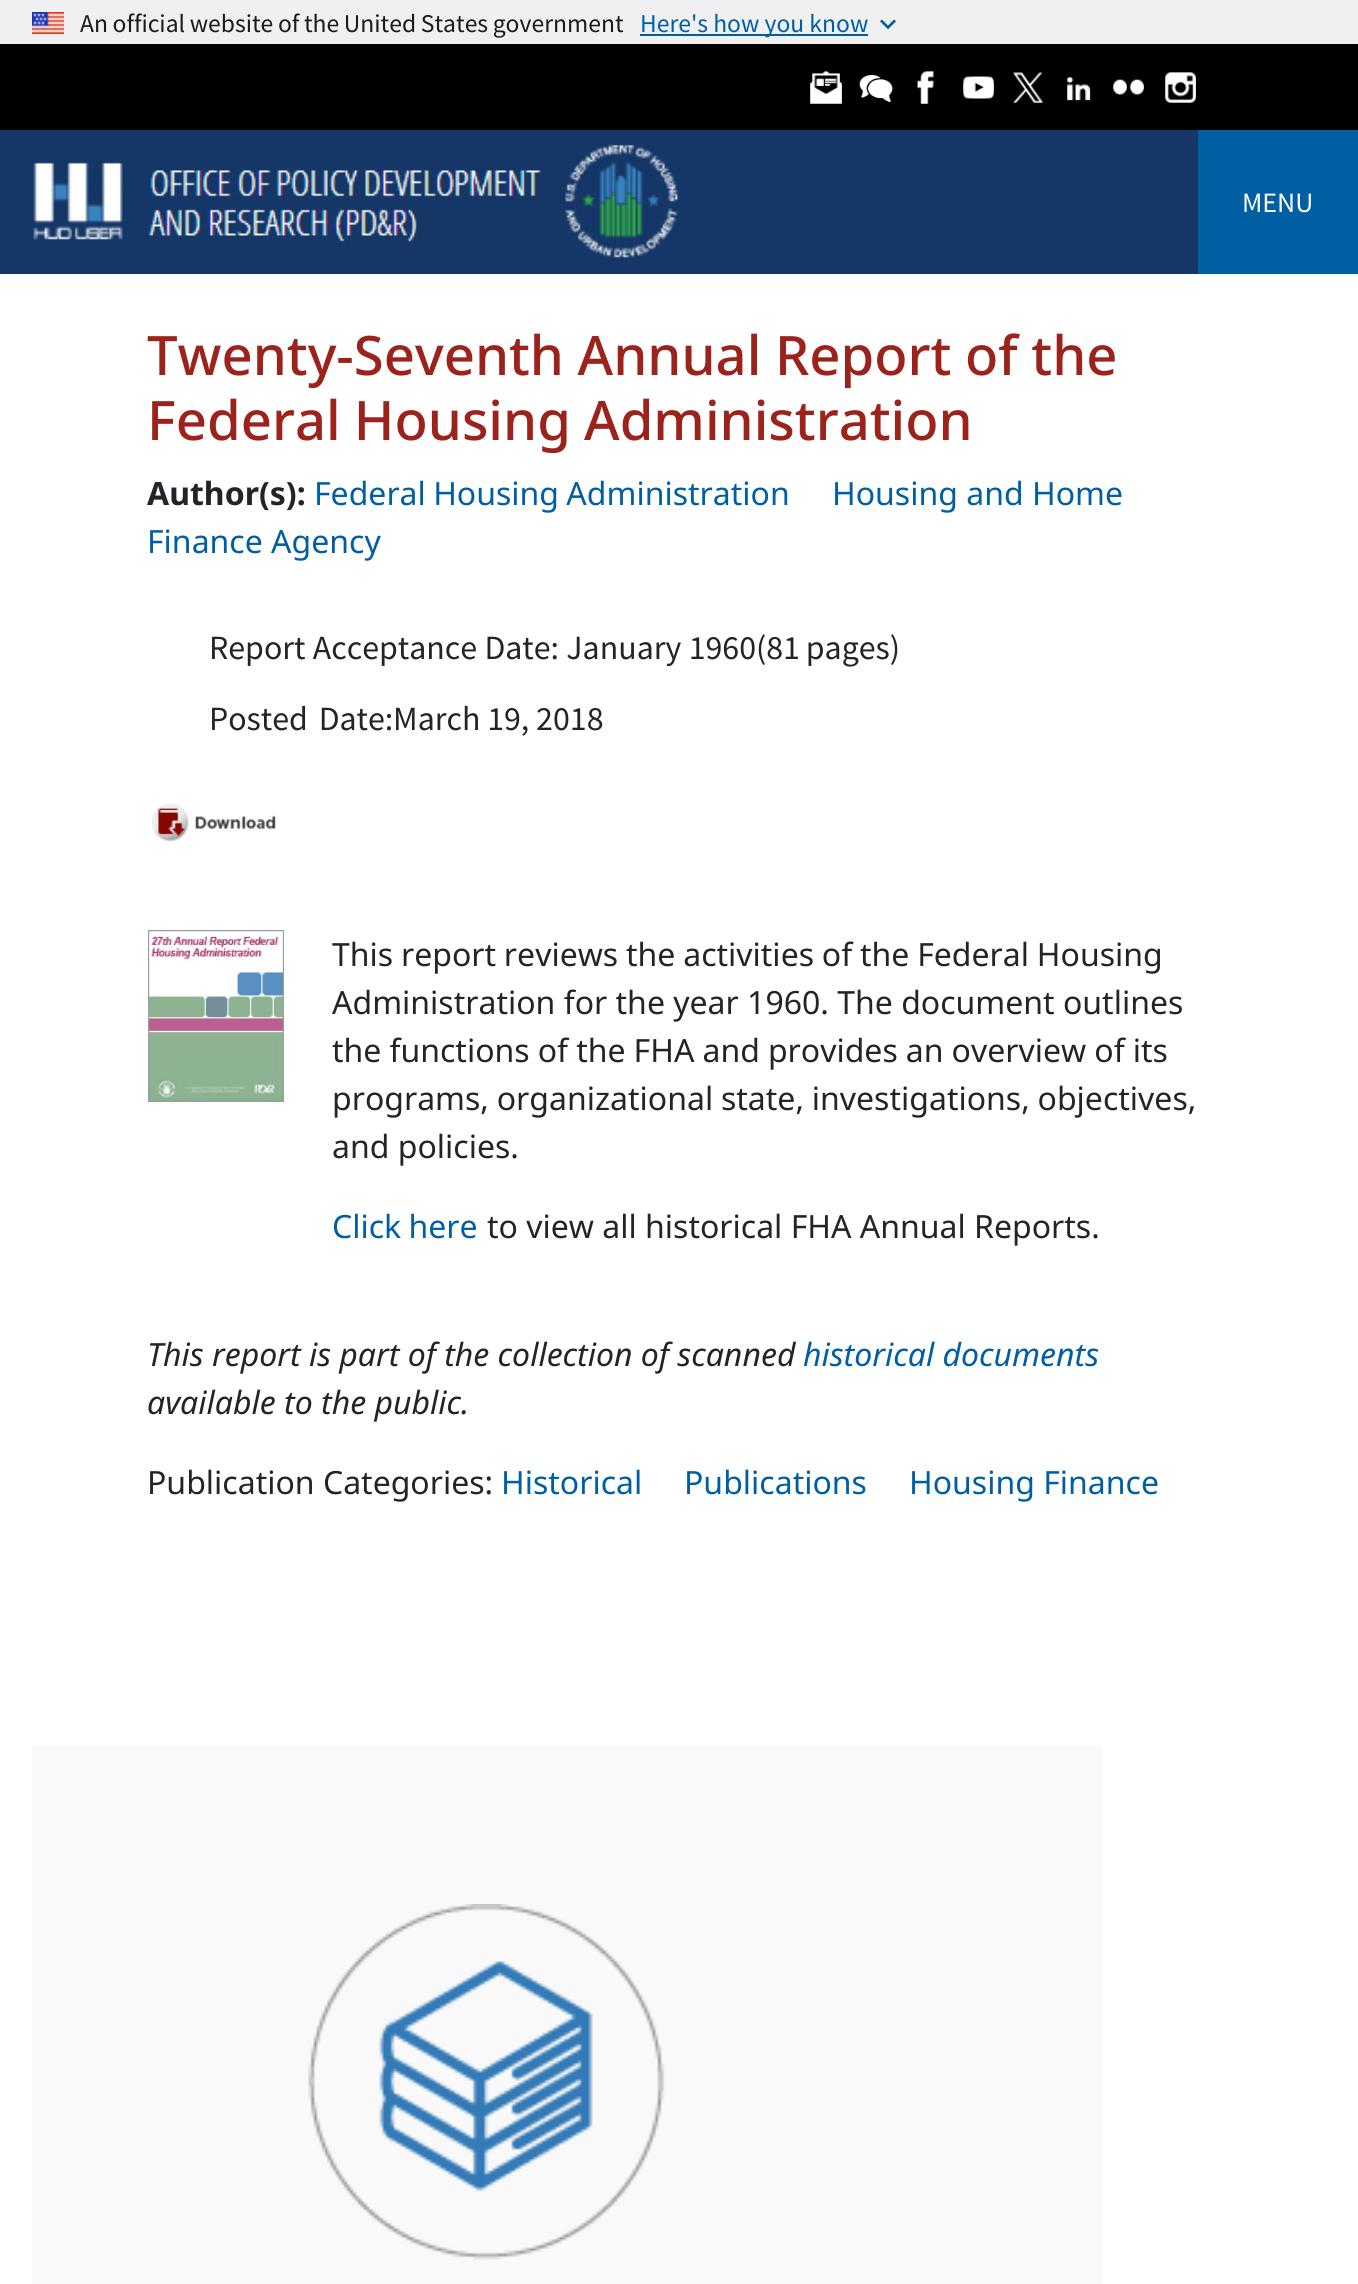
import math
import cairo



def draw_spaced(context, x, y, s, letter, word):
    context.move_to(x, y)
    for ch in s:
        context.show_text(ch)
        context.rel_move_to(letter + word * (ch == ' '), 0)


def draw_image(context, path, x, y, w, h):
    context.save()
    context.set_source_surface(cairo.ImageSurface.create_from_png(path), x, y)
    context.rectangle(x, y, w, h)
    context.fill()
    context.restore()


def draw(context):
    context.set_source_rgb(1, 1, 1)
    context.paint()
    context.set_source_rgb(240 / 255, 240 / 255, 240 / 255)
    context.rectangle(0, 0, 1358, 44)
    context.fill()
    draw_image(context, "images/1.png", 32, 12, 32, 22)
    context.set_source_rgb(0, 94 / 255, 162 / 255)
    context.rectangle(640, 34, 228, 2)
    context.fill()
    draw_image(context, "images/2.png", 880, 19, 16, 11)
    context.set_source_rgb(21 / 255, 55 / 255, 103 / 255)
    context.rectangle(0, 130, 1198, 144)
    context.fill()
    context.set_source_rgb(0, 0, 0)
    context.rectangle(0, 44, 1358, 86)
    context.fill()
    draw_image(context, "images/3.png", 810, 71, 32, 33)
    draw_image(context, "images/4.png", 859, 75, 34, 27)
    draw_image(context, "images/5.png", 917, 71, 17, 33)
    draw_image(context, "images/6.png", 963, 76, 31, 23)
    draw_image(context, "images/7.png", 1013, 72, 30, 31)
    draw_image(context, "images/8.png", 1067, 77, 24, 24)
    draw_image(context, "images/9.png", 1113, 79, 31, 16)
    draw_image(context, "images/10.png", 1165, 72, 31, 31)
    draw_image(context, "images/11.png", 33, 144, 645, 114)
    context.set_source_rgb(0, 94 / 255, 162 / 255)
    context.rectangle(1198, 130, 160, 144)
    context.fill()
    draw_image(context, "images/12.png", 152, 803, 125, 38)
    draw_image(context, "images/13.png", 148, 930, 136, 172)
    context.set_source_rgb(249 / 255, 249 / 255, 249 / 255)
    context.rectangle(32, 1746, 1070, 538)
    context.fill()
    draw_image(context, "images/14.png", 308, 1904, 357, 356)
    context.select_font_face("Source Sans Pro")
    context.set_font_size(25.6)
    context.set_source_rgb(27 / 255, 27 / 255, 27 / 255)
    draw_spaced(context, 80, 32, "An official website of the United States government", 0, -0.5)
    context.set_source_rgb(0, 94 / 255, 162 / 255)
    context.move_to(640, 32)
    context.show_text("Here's how you know")
    context.set_font_size(28)
    context.set_source_rgb(1, 1, 1)
    context.move_to(1242, 212)
    context.show_text("MENU")
    context.select_font_face("Noto Sans Medium")
    context.set_font_size(54.4)
    context.set_source_rgb(156 / 255, 35 / 255, 27 / 255)
    draw_spaced(context, 147, 375, "Twenty-Seventh Annual Report of the", 0, -0.5)
    draw_spaced(context, 147, 440, "Federal Housing Administration", 0, -1)
    context.select_font_face("Noto Sans", cairo.FontSlant.NORMAL, cairo.FontWeight.BOLD)
    context.set_font_size(32)
    context.set_source_rgb(33 / 255, 37 / 255, 41 / 255)
    context.move_to(147, 505)
    context.show_text("Author(s):")
    context.select_font_face("Noto Sans")
    context.set_source_rgb(0, 94 / 255, 162 / 255)
    draw_spaced(context, 314, 505, "Federal Housing Administration", 0, -1)
    context.move_to(832, 505)
    context.show_text("Housing and Home")
    context.move_to(147, 553)
    context.show_text("Finance Agency")
    context.select_font_face("Source Sans Pro")
    context.set_font_size(33.9)
    context.set_source_rgb(33 / 255, 37 / 255, 41 / 255)
    draw_spaced(context, 209, 659, "Report Acceptance Date: January 1960", 0, 0.5)
    draw_spaced(context, 756, 659, "(81 pages)", 0, -1)
    draw_spaced(context, 209, 730, "Posted Date:", 0, 4)
    context.move_to(393, 730)
    context.show_text("March 19, 2018")
    context.select_font_face("Noto Sans")
    context.set_font_size(32)
    draw_spaced(context, 332, 966, "This report reviews the activities of the Federal Housing", 0, -0.5)
    context.move_to(332, 1014)
    context.show_text("Administration for the year 1960. The document outlines")
    draw_spaced(context, 332, 1062, "the functions of the FHA and provides an overview of its", 0, -0.25)
    draw_spaced(context, 332, 1110, "programs, organizational state, investigations, objectives,", 0, -0.5)
    context.move_to(332, 1158)
    context.show_text("and policies.")
    context.set_source_rgb(0, 94 / 255, 162 / 255)
    draw_spaced(context, 332, 1238, "Click here", 0, -1)
    context.set_source_rgb(33 / 255, 37 / 255, 41 / 255)
    context.move_to(487, 1238)
    context.show_text("to view all historical FHA Annual Reports.")
    context.select_font_face("Noto Sans", cairo.FontSlant.ITALIC)
    context.move_to(147, 1366)
    context.show_text("This report is part of the collection of scanned")
    context.set_source_rgb(0, 94 / 255, 162 / 255)
    context.move_to(803, 1366)
    context.show_text("historical documents")
    context.set_source_rgb(33 / 255, 37 / 255, 41 / 255)
    context.move_to(147, 1414)
    context.show_text("available to the public.")
    context.select_font_face("Noto Sans")
    context.move_to(147, 1494)
    context.show_text("Publication Categories:")
    context.set_source_rgb(0, 94 / 255, 162 / 255)
    context.move_to(501, 1494)
    context.show_text("Historical")
    context.move_to(684, 1494)
    context.show_text("Publications")
    context.move_to(909, 1494)
    context.show_text("Housing Finance")


surface = cairo.ImageSurface(cairo.Format.RGB24, 1358, 2284)
context = cairo.Context(surface)
options = cairo.FontOptions()
options.set_hint_metrics(cairo.HintMetrics.OFF)
options.set_hint_style(cairo.HintStyle.NONE)
context.set_font_options(options)
context.set_miter_limit(4)
draw(context)
surface.write_to_png("out.png")
